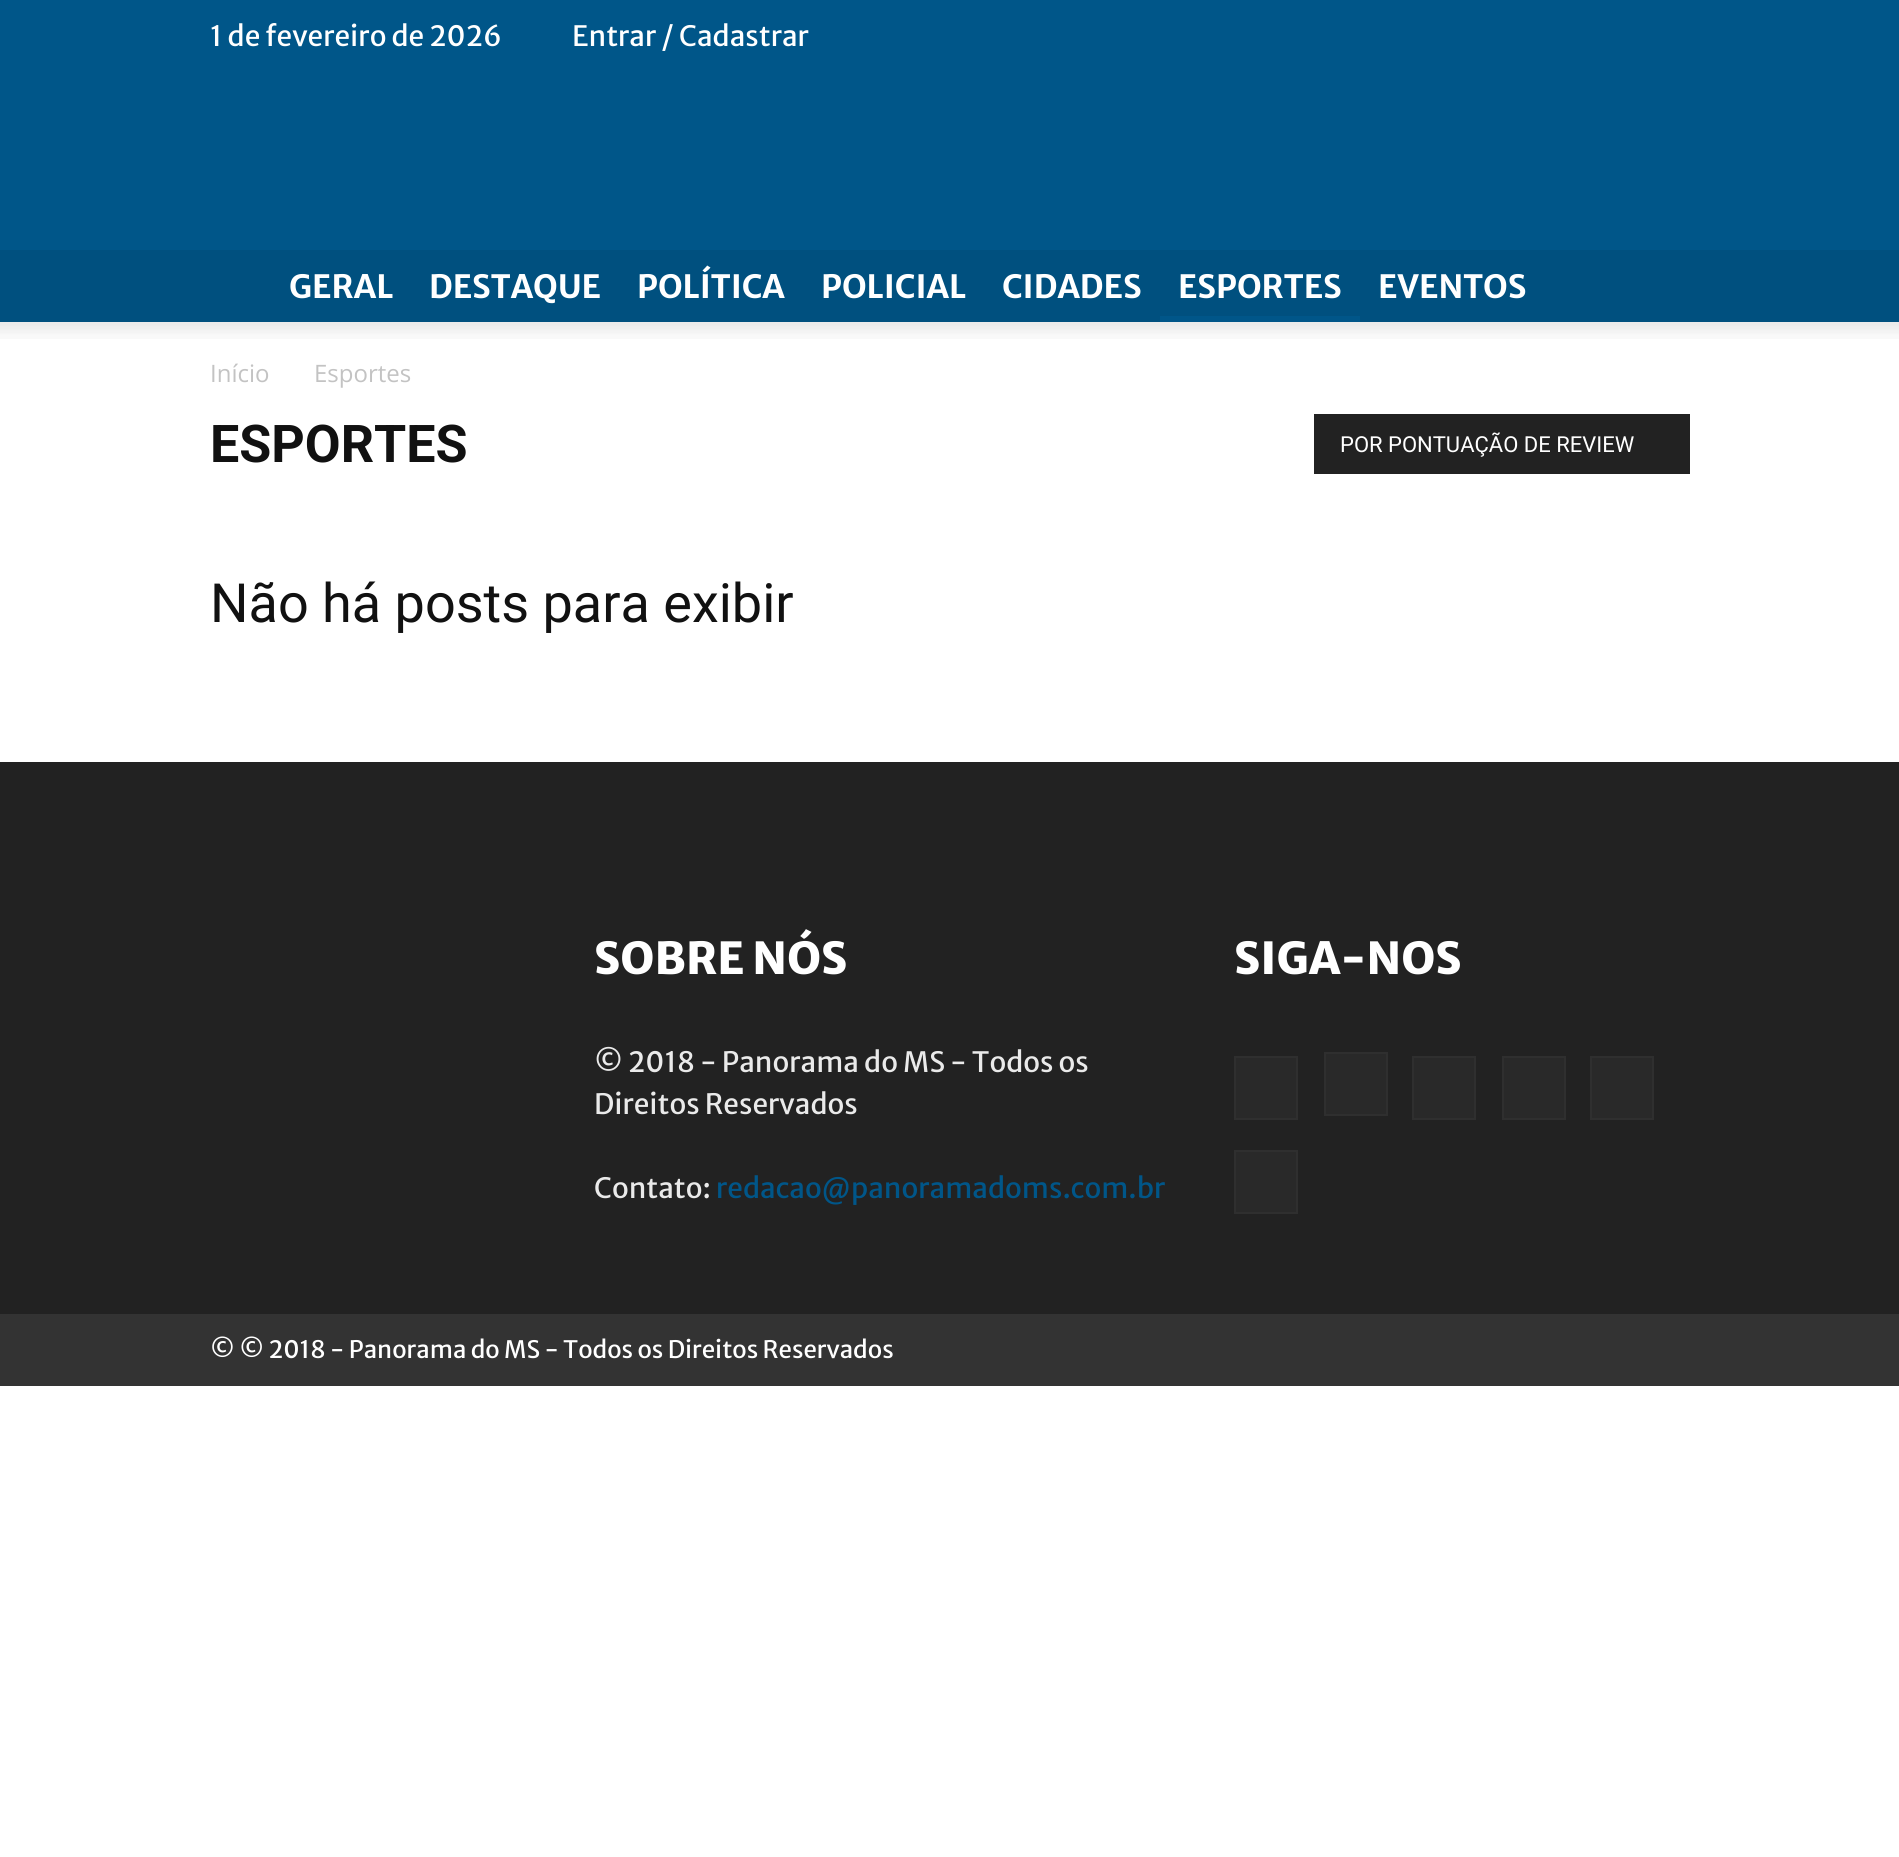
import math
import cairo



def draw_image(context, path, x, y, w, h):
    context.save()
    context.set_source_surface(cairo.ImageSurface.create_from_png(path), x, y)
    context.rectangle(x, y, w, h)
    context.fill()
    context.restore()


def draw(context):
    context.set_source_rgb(1, 1, 1)
    context.paint()
    context.set_source_rgb(0, 86 / 255, 137 / 255)
    context.rectangle(0, 0, 1899, 250)
    context.fill()
    context.set_source_rgb(0, 80 / 255, 127 / 255)
    context.rectangle(0, 250, 1899, 72)
    context.fill()
    context.set_source_rgb(0, 86 / 255, 137 / 255)
    context.rectangle(1160, 316, 200, 6)
    context.fill()
    draw_image(context, "images/1.png", 0, 322, 1899, 17)
    context.set_source_rgb(34 / 255, 34 / 255, 34 / 255)
    context.rectangle(1314, 414, 376, 60)
    context.fill()
    context.rectangle(0, 762, 1899, 552)
    context.fill()
    context.set_source_rgb(41 / 255, 41 / 255, 41 / 255)
    context.rectangle(1235, 1057, 62, 62)
    context.fill_preserve()
    context.set_source_rgb(47 / 255, 47 / 255, 47 / 255)
    context.stroke()
    context.set_source_rgb(41 / 255, 41 / 255, 41 / 255)
    context.rectangle(1325, 1053, 62, 62)
    context.fill_preserve()
    context.set_source_rgb(47 / 255, 47 / 255, 47 / 255)
    context.stroke()
    context.set_source_rgb(41 / 255, 41 / 255, 41 / 255)
    context.rectangle(1413, 1057, 62, 62)
    context.fill_preserve()
    context.set_source_rgb(47 / 255, 47 / 255, 47 / 255)
    context.stroke()
    context.set_source_rgb(41 / 255, 41 / 255, 41 / 255)
    context.rectangle(1503, 1057, 62, 62)
    context.fill_preserve()
    context.set_source_rgb(47 / 255, 47 / 255, 47 / 255)
    context.stroke()
    context.set_source_rgb(41 / 255, 41 / 255, 41 / 255)
    context.rectangle(1591, 1057, 62, 62)
    context.fill_preserve()
    context.set_source_rgb(47 / 255, 47 / 255, 47 / 255)
    context.stroke()
    context.set_source_rgb(41 / 255, 41 / 255, 41 / 255)
    context.rectangle(1235, 1151, 62, 62)
    context.fill_preserve()
    context.set_source_rgb(47 / 255, 47 / 255, 47 / 255)
    context.stroke()
    context.set_source_rgb(51 / 255, 51 / 255, 51 / 255)
    context.rectangle(0, 1314, 1899, 72)
    context.fill()
    context.select_font_face("Merriweather Sans")
    context.set_font_size(28)
    context.set_source_rgb(1, 1, 1)
    context.move_to(210, 46)
    context.show_text("1 de fevereiro de 2026")
    context.move_to(572, 46)
    context.show_text("Entrar / Cadastrar")
    context.select_font_face("Merriweather Sans", cairo.FontSlant.NORMAL, cairo.FontWeight.BOLD)
    context.set_font_size(32)
    context.move_to(289, 298)
    context.show_text("GERAL")
    context.move_to(429, 298)
    context.show_text("DESTAQUE")
    context.move_to(637, 298)
    context.show_text("POLÍTICA")
    context.move_to(821, 298)
    context.show_text("POLICIAL")
    context.move_to(1002, 298)
    context.show_text("CIDADES")
    context.move_to(1178, 298)
    context.show_text("ESPORTES")
    context.move_to(1378, 298)
    context.show_text("EVENTOS")
    context.select_font_face("Open Sans")
    context.set_font_size(24)
    context.set_source_rgb(195 / 255, 195 / 255, 195 / 255)
    context.move_to(210, 382)
    context.show_text("Início")
    context.move_to(314, 382)
    context.show_text("Esportes")
    context.select_font_face("Roboto", cairo.FontSlant.NORMAL, cairo.FontWeight.BOLD)
    context.set_font_size(52)
    context.set_source_rgb(17 / 255, 17 / 255, 17 / 255)
    context.move_to(210, 462)
    context.show_text("ESPORTES")
    context.select_font_face("Roboto")
    context.set_font_size(22)
    context.set_source_rgb(1, 1, 1)
    context.move_to(1340, 452)
    context.show_text("POR PONTUAÇÃO DE REVIEW")
    context.set_font_size(54)
    context.set_source_rgb(17 / 255, 17 / 255, 17 / 255)
    context.move_to(210, 622)
    context.show_text("Não há posts para exibir")
    context.select_font_face("Merriweather Sans ExtraBold")
    context.set_font_size(44)
    context.set_source_rgb(1, 1, 1)
    context.move_to(594, 974)
    context.show_text("SOBRE NÓS")
    context.select_font_face("Merriweather Sans")
    context.set_font_size(28)
    context.set_source_rgb(234 / 255, 234 / 255, 234 / 255)
    context.move_to(594, 1072)
    context.show_text("© 2018 - Panorama do MS - Todos os")
    context.move_to(594, 1114)
    context.show_text("Direitos Reservados")
    context.move_to(594, 1198)
    context.show_text("Contato:")
    context.set_source_rgb(0, 86 / 255, 137 / 255)
    context.move_to(716, 1198)
    context.show_text("redacao@panoramadoms.com.br")
    context.select_font_face("Merriweather Sans ExtraBold")
    context.set_font_size(44)
    context.set_source_rgb(1, 1, 1)
    context.move_to(1234, 974)
    context.show_text("SIGA-NOS")
    context.select_font_face("Merriweather Sans")
    context.set_font_size(24)
    context.move_to(210, 1358)
    context.show_text("© © 2018 - Panorama do MS - Todos os Direitos Reservados")


surface = cairo.ImageSurface(cairo.Format.RGB24, 1899, 1857)
context = cairo.Context(surface)
options = cairo.FontOptions()
options.set_hint_metrics(cairo.HintMetrics.OFF)
options.set_hint_style(cairo.HintStyle.NONE)
context.set_font_options(options)
context.set_miter_limit(4)
draw(context)
surface.write_to_png("out.png")
